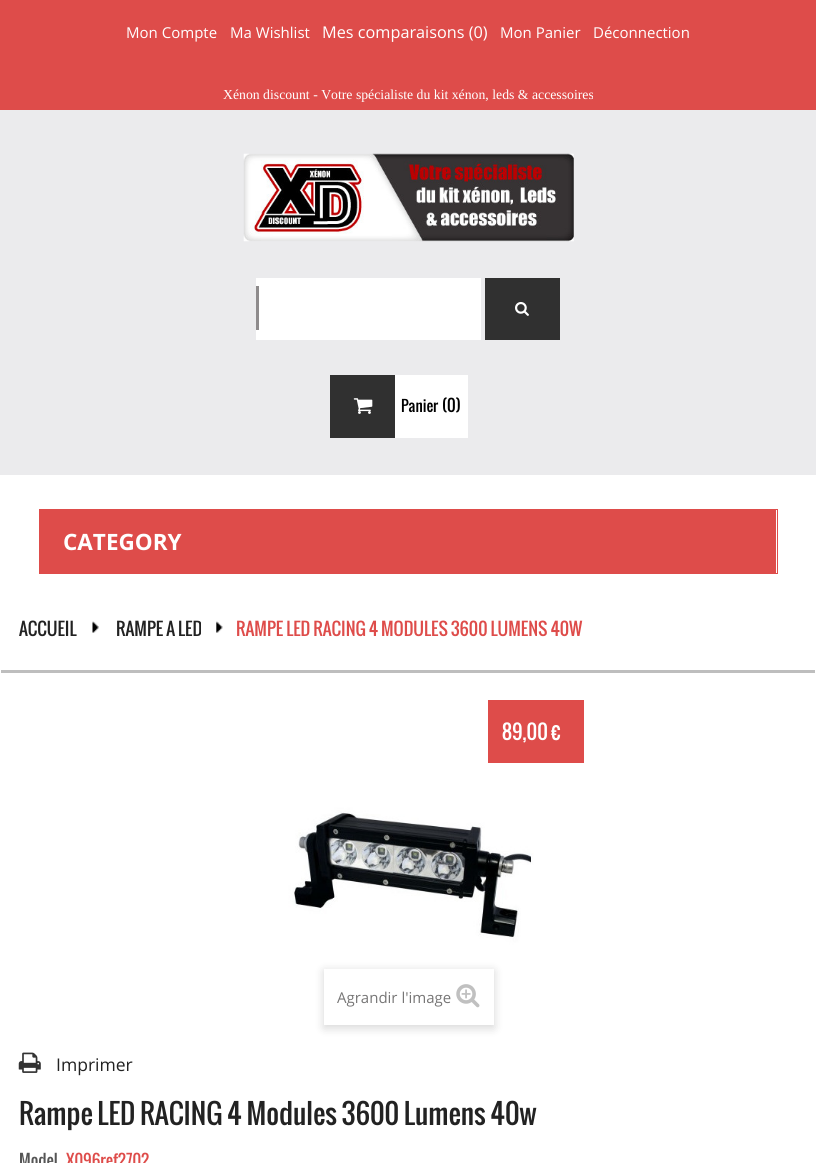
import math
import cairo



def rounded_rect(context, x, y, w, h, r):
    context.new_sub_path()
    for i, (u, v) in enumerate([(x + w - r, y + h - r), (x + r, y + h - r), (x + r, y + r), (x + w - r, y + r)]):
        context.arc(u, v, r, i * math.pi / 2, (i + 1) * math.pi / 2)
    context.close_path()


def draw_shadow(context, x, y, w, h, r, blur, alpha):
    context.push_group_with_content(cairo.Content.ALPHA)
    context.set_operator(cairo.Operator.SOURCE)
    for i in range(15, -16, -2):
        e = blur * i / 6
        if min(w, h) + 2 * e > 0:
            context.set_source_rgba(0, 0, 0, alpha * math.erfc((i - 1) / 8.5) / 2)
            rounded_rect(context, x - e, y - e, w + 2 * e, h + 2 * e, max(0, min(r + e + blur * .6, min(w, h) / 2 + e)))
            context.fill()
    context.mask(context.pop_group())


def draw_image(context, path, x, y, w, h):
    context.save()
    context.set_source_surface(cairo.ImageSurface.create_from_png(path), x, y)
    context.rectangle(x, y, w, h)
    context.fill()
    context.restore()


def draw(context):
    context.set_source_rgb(1, 1, 1)
    context.paint()
    context.set_source_rgb(222 / 255, 76 / 255, 74 / 255)
    context.rectangle(0, 0, 816, 110)
    context.fill()
    context.set_source_rgb(235 / 255, 235 / 255, 237 / 255)
    context.rectangle(0, 110, 816, 365)
    context.fill()
    draw_image(context, "images/1.png", 243, 153, 331, 89)
    context.set_source_rgb(1, 1, 1)
    context.rectangle(256, 278, 225, 62)
    context.fill()
    context.set_source_rgb(142 / 255, 139 / 255, 140 / 255)
    context.rectangle(256, 286, 3, 44)
    context.fill()
    context.set_source_rgb(48 / 255, 48 / 255, 48 / 255)
    context.rectangle(485, 278, 75, 62)
    context.fill()
    draw_image(context, "images/2.png", 515, 302, 14, 14)
    context.set_source_rgb(1, 1, 1)
    context.rectangle(395, 375, 73, 63)
    context.fill()
    context.set_source_rgb(48 / 255, 48 / 255, 48 / 255)
    context.rectangle(330, 375, 65, 63)
    context.fill()
    draw_image(context, "images/3.png", 353, 398, 20, 16)
    context.rectangle(39.5, 509.5, 738, 64)
    context.set_source_rgb(222 / 255, 76 / 255, 74 / 255)
    context.set_line_width(1)
    context.stroke()
    context.rectangle(40, 510, 736, 63)
    context.fill()
    context.set_source_rgb(190 / 255, 190 / 255, 190 / 255)
    context.rectangle(1, 670, 814, 3)
    context.fill()
    draw_image(context, "images/4.png", 92, 621, 7, 12)
    draw_image(context, "images/5.png", 216, 621, 7, 12)
    draw_image(context, "images/6.png", 234, 700, 350, 350)
    context.set_source_rgb(222 / 255, 76 / 255, 74 / 255)
    context.rectangle(488, 700, 96, 63)
    context.fill()
    context.save()
    context.set_fill_rule(cairo.FillRule.EVEN_ODD)
    context.new_path()
    context.move_to(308, 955)
    context.line_to(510, 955)
    context.line_to(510, 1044)
    context.line_to(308, 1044)
    context.close_path()
    context.move_to(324, 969)
    context.line_to(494, 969)
    context.line_to(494, 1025)
    context.line_to(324, 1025)
    context.close_path()
    context.clip()
    context.set_source_rgb(0, 0, 0)
    draw_shadow(context, 324, 971, 170, 57, 0, 5, 0.16)
    context.restore()
    context.set_source_rgba(1, 1, 1, 0.5)
    context.rectangle(493, 979, 1, 41)
    context.fill()
    draw_image(context, "images/7.png", 456, 984, 24, 24)
    draw_image(context, "images/8.png", 18, 1052, 23, 21)
    context.select_font_face("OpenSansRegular")
    context.set_font_size(15)
    context.set_source_rgb(1, 1, 1)
    context.move_to(126, 38)
    context.show_text("Mon Compte")
    context.move_to(230, 38)
    context.show_text("Ma Wishlist")
    context.set_font_size(16.25)
    context.move_to(322, 38)
    context.show_text("Mes comparaisons (0)")
    context.set_font_size(15)
    context.move_to(500, 38)
    context.show_text("Mon Panier")
    context.move_to(593, 38)
    context.show_text("Déconnection")
    context.select_font_face("Liberation Serif")
    context.set_font_size(13.75)
    context.move_to(223, 99)
    context.show_text("Xénon discount - Votre spécialiste du kit xénon, leds & accessoires")
    context.select_font_face("Oswald")
    context.set_font_size(15)
    context.set_source_rgb(0, 0, 0)
    context.move_to(401, 412)
    context.show_text("Panier")
    context.set_font_size(16.25)
    context.move_to(442, 412)
    context.show_text("(0)")
    context.select_font_face("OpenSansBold", cairo.FontSlant.NORMAL, cairo.FontWeight.BOLD)
    context.set_font_size(22.5)
    context.set_source_rgb(1, 1, 1)
    context.move_to(63, 550)
    context.show_text("CATEGORY")
    context.select_font_face("Oswald")
    context.set_font_size(17.5)
    context.set_source_rgb(34 / 255, 34 / 255, 34 / 255)
    context.move_to(19, 636)
    context.show_text("ACCUEIL")
    context.move_to(116, 636)
    context.show_text("RAMPE A LED")
    context.set_source_rgb(222 / 255, 76 / 255, 74 / 255)
    context.move_to(236, 636)
    context.show_text("RAMPE LED RACING 4 MODULES 3600 LUMENS 40W")
    context.set_font_size(20)
    context.set_source_rgb(1, 1, 1)
    context.move_to(502, 740)
    context.show_text("89,00 €")
    context.select_font_face("OpenSansRegular")
    context.set_font_size(15)
    context.set_source_rgb(119 / 255, 118 / 255, 118 / 255)
    context.move_to(337, 1003)
    context.show_text("Agrandir l'image")
    context.set_font_size(17.5)
    context.set_source_rgb(34 / 255, 34 / 255, 34 / 255)
    context.move_to(56, 1071)
    context.show_text("Imprimer")
    context.select_font_face("Oswald")
    context.set_font_size(27.5)
    context.move_to(19, 1125)
    context.show_text("Rampe LED RACING 4 Modules 3600 Lumens 40w")
    context.set_font_size(16.25)
    context.set_source_rgb(85 / 255, 85 / 255, 85 / 255)
    context.move_to(19, 1167)
    context.show_text("Model")
    context.set_source_rgb(222 / 255, 76 / 255, 74 / 255)
    context.move_to(66, 1167)
    context.show_text("X096ref2702")


surface = cairo.ImageSurface(cairo.Format.RGB24, 816, 1163)
context = cairo.Context(surface)
options = cairo.FontOptions()
options.set_hint_metrics(cairo.HintMetrics.OFF)
options.set_hint_style(cairo.HintStyle.NONE)
context.set_font_options(options)
context.set_miter_limit(4)
draw(context)
surface.write_to_png("out.png")
